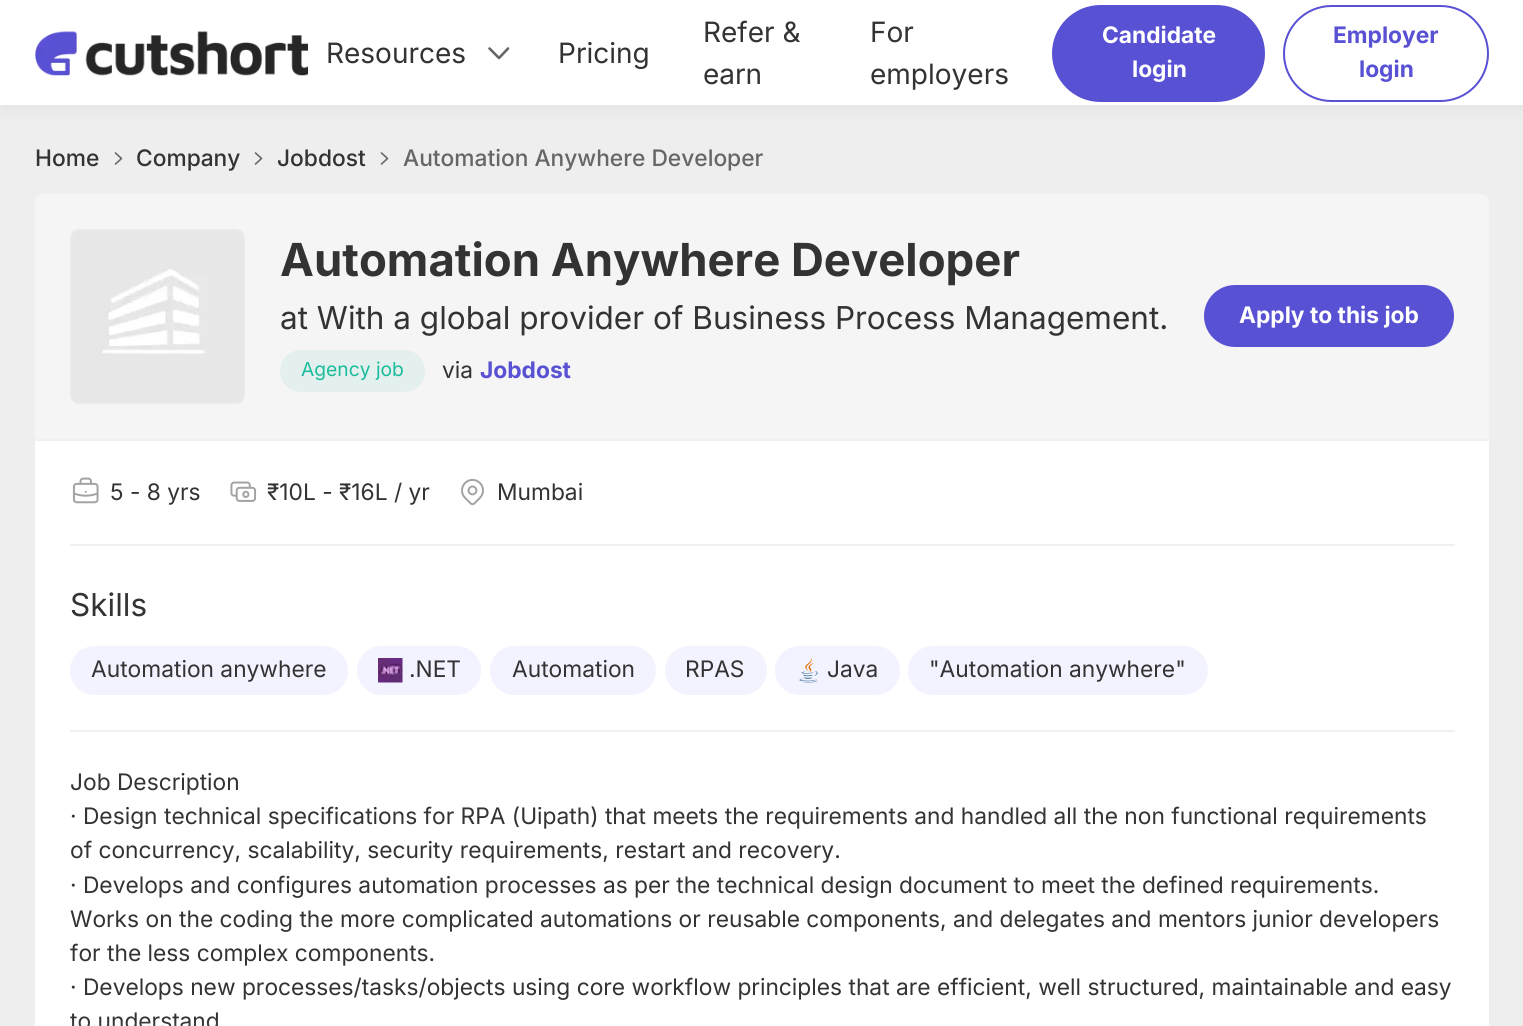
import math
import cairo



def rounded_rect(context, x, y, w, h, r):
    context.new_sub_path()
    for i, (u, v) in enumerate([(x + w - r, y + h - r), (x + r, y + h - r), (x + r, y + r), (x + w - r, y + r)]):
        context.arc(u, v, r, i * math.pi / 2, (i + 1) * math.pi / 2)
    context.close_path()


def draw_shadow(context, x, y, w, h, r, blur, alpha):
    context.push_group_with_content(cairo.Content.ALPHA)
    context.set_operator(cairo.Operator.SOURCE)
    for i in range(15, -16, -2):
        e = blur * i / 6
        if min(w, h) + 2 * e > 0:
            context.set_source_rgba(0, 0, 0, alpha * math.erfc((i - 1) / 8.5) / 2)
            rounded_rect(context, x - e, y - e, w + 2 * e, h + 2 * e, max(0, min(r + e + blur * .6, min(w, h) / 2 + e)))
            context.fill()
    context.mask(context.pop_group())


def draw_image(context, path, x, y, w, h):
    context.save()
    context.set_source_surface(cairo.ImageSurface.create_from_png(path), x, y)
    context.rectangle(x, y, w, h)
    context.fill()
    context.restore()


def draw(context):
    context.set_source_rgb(238 / 255, 238 / 255, 238 / 255)
    context.paint()
    context.set_source_rgb(0, 0, 0)
    draw_shadow(context, 2, 7, 1521, 102, 0, 8, 0.05)
    context.set_source_rgb(1, 1, 1)
    context.rectangle(0, 0, 1523, 105)
    context.fill()
    draw_image(context, "images/1.png", 35, 31, 273, 45)
    context.new_path()
    context.move_to(508, 48.5)
    context.line_to(499, 58)
    context.line_to(489.5, 48.5)
    context.set_source_rgb(102 / 255, 102 / 255, 102 / 255)
    context.set_line_width(2.6)
    context.set_line_cap(cairo.LineCap.ROUND)
    context.set_line_join(cairo.LineJoin.ROUND)
    context.stroke()
    context.set_source_rgb(88 / 255, 81 / 255, 211 / 255)
    rounded_rect(context, 1052, 5, 213, 97, 48.5)
    context.fill()
    rounded_rect(context, 1284, 6, 204, 95, 47.5)
    context.set_line_width(2)
    context.set_line_cap(cairo.LineCap.BUTT)
    context.set_line_join(cairo.LineJoin.MITER)
    context.stroke()
    context.new_path()
    context.move_to(115.5, 153)
    context.line_to(121.5, 158.5)
    context.line_to(115.5, 164)
    context.set_source_rgb(102 / 255, 102 / 255, 102 / 255)
    context.set_line_width(1.6)
    context.set_line_cap(cairo.LineCap.ROUND)
    context.set_line_join(cairo.LineJoin.ROUND)
    context.stroke()
    context.new_path()
    context.move_to(255.5, 153)
    context.line_to(261.5, 158.5)
    context.line_to(255.5, 164)
    context.stroke()
    context.new_path()
    context.move_to(381.5, 153)
    context.line_to(387.5, 158.5)
    context.line_to(381.5, 164)
    context.stroke()
    context.set_source_rgb(1, 1, 1)
    context.new_path()
    context.move_to(44, 194)
    context.line_to(1480, 194)
    context.curve_to(1485, 194, 1489, 198, 1489, 203)
    context.line_to(1489, 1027)
    context.line_to(35, 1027)
    context.line_to(35, 203)
    context.curve_to(35, 198, 39, 194, 44, 194)
    context.close_path()
    context.fill()
    context.set_source_rgb(245 / 255, 245 / 255, 245 / 255)
    context.new_path()
    context.move_to(44, 194)
    context.line_to(1480, 194)
    context.curve_to(1485, 194, 1489, 198, 1489, 203)
    context.line_to(1489, 439)
    context.line_to(35, 439)
    context.line_to(35, 203)
    context.curve_to(35, 198, 39, 194, 44, 194)
    context.close_path()
    context.fill()
    rounded_rect(context, 71, 230, 173, 173, 8)
    context.set_source_rgb(234 / 255, 234 / 255, 234 / 255)
    context.set_line_width(2)
    context.set_line_cap(cairo.LineCap.BUTT)
    context.set_line_join(cairo.LineJoin.MITER)
    context.stroke()
    draw_image(context, "images/2.png", 72, 231, 171, 171)
    context.set_source_rgb(227 / 255, 240 / 255, 238 / 255)
    rounded_rect(context, 280, 350, 145, 42, 21)
    context.fill()
    context.set_source_rgb(88 / 255, 81 / 255, 211 / 255)
    rounded_rect(context, 1204, 285, 250, 62, 31)
    context.fill()
    context.set_source_rgb(240 / 255, 240 / 255, 240 / 255)
    context.rectangle(35, 439, 1455, 2)
    context.fill()
    draw_image(context, "images/3.png", 72, 477, 27, 27)
    draw_image(context, "images/4.png", 230, 481, 27, 21)
    draw_image(context, "images/5.png", 461, 478, 23, 28)
    context.rectangle(70, 544, 1385, 2)
    context.fill()
    context.set_source_rgb(243 / 255, 242 / 255, 1)
    rounded_rect(context, 70, 646, 278, 49, 24.5)
    context.fill()
    rounded_rect(context, 357, 646, 124, 49, 24.5)
    context.fill()
    draw_image(context, "images/6.png", 378, 658, 25, 25)
    rounded_rect(context, 490, 646, 166, 49, 24.5)
    context.fill()
    rounded_rect(context, 665, 646, 102, 49, 24.5)
    context.fill()
    rounded_rect(context, 775, 646, 125, 49, 24.5)
    context.fill()
    draw_image(context, "images/7.png", 799, 658, 19, 25)
    rounded_rect(context, 908, 646, 300, 49, 24.5)
    context.fill()
    context.set_source_rgb(240 / 255, 240 / 255, 240 / 255)
    context.rectangle(70, 730, 1385, 2)
    context.fill()
    context.select_font_face("Inter")
    context.set_font_size(28)
    context.set_source_rgb(51 / 255, 51 / 255, 51 / 255)
    context.move_to(326, 63)
    context.show_text("Resources")
    context.move_to(558, 63)
    context.show_text("Pricing")
    context.move_to(703, 42)
    context.show_text("Refer &")
    context.move_to(703, 84)
    context.show_text("earn")
    context.move_to(870, 42)
    context.show_text("For")
    context.move_to(870, 84)
    context.show_text("employers")
    context.select_font_face("Inter", cairo.FontSlant.NORMAL, cairo.FontWeight.BOLD)
    context.set_font_size(22.75)
    context.set_source_rgb(1, 1, 1)
    context.move_to(1102, 43)
    context.show_text("Candidate")
    context.move_to(1132, 77)
    context.show_text("login")
    context.set_source_rgb(88 / 255, 81 / 255, 211 / 255)
    context.move_to(1333, 43)
    context.show_text("Employer")
    context.move_to(1359, 77)
    context.show_text("login")
    context.select_font_face("Inter Medium")
    context.set_source_rgb(51 / 255, 51 / 255, 51 / 255)
    context.move_to(35, 166)
    context.show_text("Home")
    context.move_to(136, 166)
    context.show_text("Company")
    context.move_to(277, 166)
    context.show_text("Jobdost")
    context.set_source_rgb(102 / 255, 102 / 255, 102 / 255)
    context.move_to(403, 166)
    context.show_text("Automation Anywhere Developer")
    context.select_font_face("Inter", cairo.FontSlant.NORMAL, cairo.FontWeight.BOLD)
    context.set_font_size(45.5)
    context.set_source_rgb(51 / 255, 51 / 255, 51 / 255)
    context.move_to(280, 276)
    context.show_text("Automation Anywhere Developer")
    context.select_font_face("Inter")
    context.set_font_size(31.5)
    context.move_to(280, 329)
    context.show_text("at With a global provider of Business Process Management.")
    context.set_font_size(19.25)
    context.set_source_rgb(26 / 255, 188 / 255, 156 / 255)
    context.move_to(301, 376)
    context.show_text("Agency job")
    context.set_font_size(22.75)
    context.set_source_rgb(51 / 255, 51 / 255, 51 / 255)
    context.move_to(442, 378)
    context.show_text("via")
    context.select_font_face("Inter", cairo.FontSlant.NORMAL, cairo.FontWeight.BOLD)
    context.set_source_rgb(88 / 255, 81 / 255, 211 / 255)
    context.move_to(480, 378)
    context.show_text("Jobdost")
    context.set_source_rgb(1, 1, 1)
    context.move_to(1239, 323)
    context.show_text("Apply to this job")
    context.select_font_face("Inter")
    context.set_source_rgb(51 / 255, 51 / 255, 51 / 255)
    context.move_to(110, 500)
    context.show_text("5 - 8 yrs")
    context.move_to(267, 500)
    context.show_text("₹10L - ₹16L / yr")
    context.move_to(497, 500)
    context.show_text("Mumbai")
    context.set_font_size(31.5)
    context.move_to(70, 616)
    context.show_text("Skills")
    context.set_font_size(22.75)
    context.move_to(91, 677)
    context.show_text("Automation anywhere")
    context.move_to(409, 677)
    context.show_text(".NET")
    context.move_to(512, 677)
    context.show_text("Automation")
    context.move_to(685, 677)
    context.show_text("RPAS")
    context.move_to(827, 677)
    context.show_text("Java")
    context.move_to(929, 677)
    context.show_text("\"Automation anywhere\"")
    context.move_to(70, 790)
    context.show_text("Job Description")
    context.move_to(70, 824)
    context.show_text("· Design technical specifications for RPA (Uipath) that meets the requirements and handled all the non functional requirements")
    context.move_to(70, 858)
    context.show_text("of concurrency, scalability, security requirements, restart and recovery.")
    context.move_to(70, 893)
    context.show_text("· Develops and configures automation processes as per the technical design document to meet the defined requirements.")
    context.move_to(70, 927)
    context.show_text("Works on the coding the more complicated automations or reusable components, and delegates and mentors junior developers")
    context.move_to(70, 961)
    context.show_text("for the less complex components.")
    context.move_to(70, 995)
    context.show_text("· Develops new processes/tasks/objects using core workflow principles that are efficient, well structured, maintainable and easy")
    context.move_to(70, 1029)
    context.show_text("to understand")
    gradient = cairo.LinearGradient(762, 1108, 762, 1020)
    gradient.add_color_stop_rgba(0, 1, 1, 1, 1)
    gradient.add_color_stop_rgba(1, 1, 1, 1, 0)
    context.set_source(gradient)
    context.rectangle(70, 1022, 148, 4)
    context.fill()


surface = cairo.ImageSurface(cairo.Format.RGB24, 1523, 1026)
context = cairo.Context(surface)
options = cairo.FontOptions()
options.set_hint_metrics(cairo.HintMetrics.OFF)
options.set_hint_style(cairo.HintStyle.NONE)
context.set_font_options(options)
context.set_miter_limit(4)
draw(context)
surface.write_to_png("out.png")
